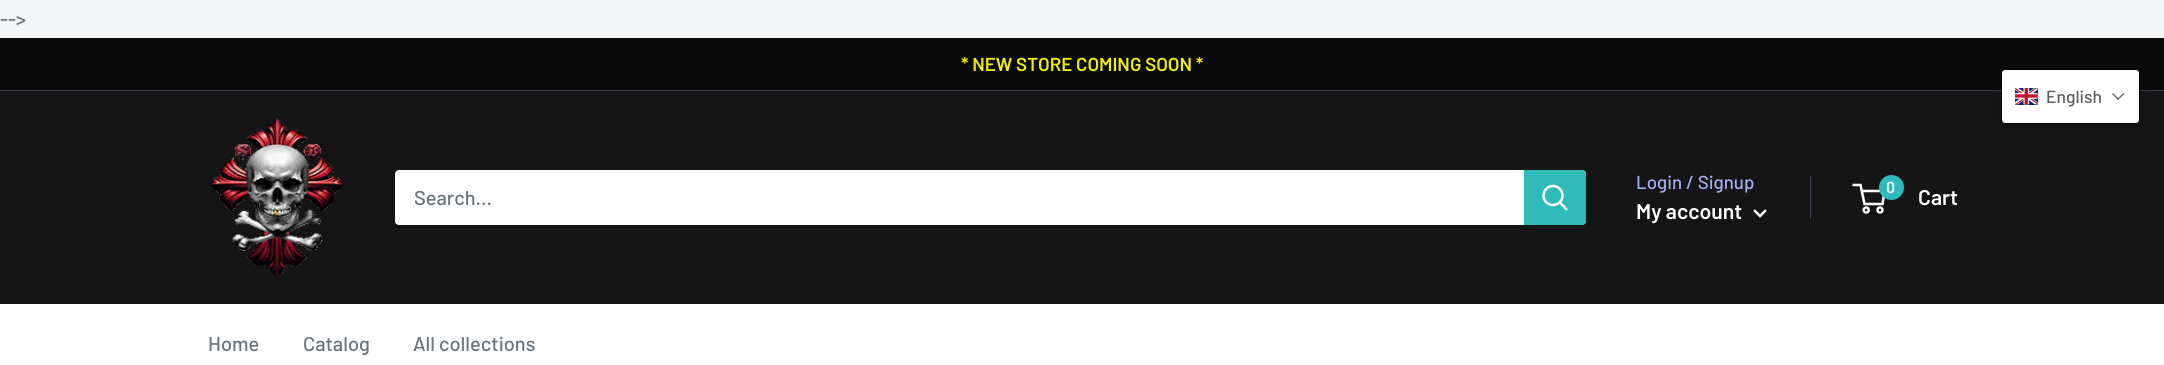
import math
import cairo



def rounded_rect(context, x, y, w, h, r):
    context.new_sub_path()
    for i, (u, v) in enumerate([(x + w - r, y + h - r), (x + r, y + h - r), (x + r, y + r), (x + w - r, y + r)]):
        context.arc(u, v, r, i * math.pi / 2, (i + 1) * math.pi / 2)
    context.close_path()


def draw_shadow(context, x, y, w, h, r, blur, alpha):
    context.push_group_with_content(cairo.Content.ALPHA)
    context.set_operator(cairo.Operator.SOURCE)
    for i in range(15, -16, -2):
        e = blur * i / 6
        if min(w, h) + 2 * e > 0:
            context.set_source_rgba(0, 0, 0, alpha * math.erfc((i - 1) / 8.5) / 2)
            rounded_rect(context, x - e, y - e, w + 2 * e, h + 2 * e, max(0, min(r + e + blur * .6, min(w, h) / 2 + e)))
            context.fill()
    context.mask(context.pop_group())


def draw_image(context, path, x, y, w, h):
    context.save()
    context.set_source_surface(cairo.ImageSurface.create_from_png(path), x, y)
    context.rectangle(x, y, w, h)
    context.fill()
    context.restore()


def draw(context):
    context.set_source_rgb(243 / 255, 245 / 255, 246 / 255)
    context.paint()
    context.set_source_rgb(11 / 255, 10 / 255, 11 / 255)
    context.rectangle(0, 38, 2164, 52)
    context.fill()
    context.set_source_rgb(57 / 255, 60 / 255, 79 / 255)
    context.rectangle(0, 90, 2164, 1)
    context.fill()
    context.set_source_rgb(21 / 255, 21 / 255, 22 / 255)
    context.rectangle(0, 91, 2164, 213)
    context.fill()
    context.set_source_rgb(0, 0, 0)
    draw_shadow(context, 2001, 69, 139, 55, 4, 6, 0.15)
    context.set_source_rgb(1, 1, 1)
    rounded_rect(context, 2001.5, 69.5, 138, 54, 3.5)
    context.fill_preserve()
    context.set_source_rgb(0, 0, 0)
    context.set_line_width(1)
    context.stroke()
    draw_image(context, "images/1.png", 2015, 88, 23, 17)
    context.set_source_rgb(108 / 255, 108 / 255, 108 / 255)
    context.new_path()
    context.move_to(2123.5, 93)
    context.line_to(2124.5, 94)
    context.line_to(2118, 100)
    context.line_to(2117, 99)
    context.close_path()
    context.fill()
    context.new_path()
    context.move_to(2113, 93)
    context.line_to(2119, 99)
    context.line_to(2118, 100)
    context.line_to(2112, 94)
    context.close_path()
    context.fill()
    draw_image(context, "images/2.png", 209, 118, 136, 160)
    context.set_source_rgb(1, 1, 1)
    rounded_rect(context, 395, 170, 1191, 55, 4)
    context.fill()
    context.set_source_rgb(47 / 255, 186 / 255, 186 / 255)
    context.new_path()
    context.move_to(1524, 170)
    context.line_to(1582, 170)
    context.curve_to(1584, 170, 1586, 172, 1586, 174)
    context.line_to(1586, 221)
    context.curve_to(1586, 223, 1584, 225, 1582, 225)
    context.line_to(1524, 225)
    context.close_path()
    context.fill()
    context.new_path()
    context.move_to(1566, 209)
    context.line_to(1560, 202.5)
    context.set_source_rgb(1, 1, 1)
    context.set_line_width(2.5)
    context.set_line_cap(cairo.LineCap.SQUARE)
    context.stroke()
    context.arc(1553, 195.5, 9.5, 0, 2 * math.pi)
    context.set_line_cap(cairo.LineCap.BUTT)
    context.stroke()
    context.set_source_rgb(64 / 255, 67 / 255, 87 / 255)
    context.rectangle(1810, 176, 1, 43)
    context.fill()
    context.new_path()
    context.move_to(1765, 211)
    context.line_to(1760, 216)
    context.line_to(1755, 211)
    context.set_source_rgb(1, 1, 1)
    context.set_line_cap(cairo.LineCap.SQUARE)
    context.stroke()
    context.arc(1866.2, 210, 2.5, 0, 2 * math.pi)
    context.set_line_cap(cairo.LineCap.BUTT)
    context.stroke()
    context.arc(1880, 210, 2.5, 0, 2 * math.pi)
    context.stroke()
    context.new_path()
    context.move_to(1861.5, 191)
    context.line_to(1884.5, 191)
    context.line_to(1882.5, 204)
    context.line_to(1864.5, 204)
    context.line_to(1860.5, 185)
    context.line_to(1852.5, 185)
    context.stroke()
    context.set_source_rgb(47 / 255, 186 / 255, 186 / 255)
    context.arc(1891.5, 187.5, 12.5, 0, 2 * math.pi)
    context.fill()
    context.set_source_rgb(1, 1, 1)
    context.rectangle(0, 304, 2164, 61)
    context.fill()
    context.select_font_face("Barlow Medium")
    context.set_font_size(20)
    context.set_source_rgb(103 / 255, 114 / 255, 121 / 255)
    context.move_to(0, 26)
    context.show_text("-->")
    context.select_font_face("Barlow SemiBold")
    context.set_font_size(18.75)
    context.set_source_rgb(241 / 255, 238 / 255, 7 / 255)
    context.move_to(961, 71)
    context.show_text("* NEW STORE COMING SOON *")
    context.select_font_face("Barlow Medium")
    context.set_font_size(17.5)
    context.set_source_rgb(92 / 255, 92 / 255, 92 / 255)
    context.move_to(2046, 103)
    context.show_text("English")
    context.set_font_size(20)
    context.set_source_rgb(103 / 255, 114 / 255, 121 / 255)
    context.move_to(414, 205)
    context.show_text("Search...")
    context.set_font_size(18.75)
    context.set_source_rgb(163 / 255, 175 / 255, 239 / 255)
    context.move_to(1636, 189)
    context.show_text("Login / Signup")
    context.select_font_face("Barlow SemiBold")
    context.set_font_size(21.25)
    context.set_source_rgb(1, 1, 1)
    context.move_to(1636, 219)
    context.show_text("My account")
    context.set_font_size(16)
    context.move_to(1886, 193)
    context.show_text("0")
    context.set_font_size(21.25)
    context.move_to(1918, 205)
    context.show_text("Cart")
    context.select_font_face("Barlow Medium")
    context.set_font_size(20)
    context.set_source_rgb(103 / 255, 114 / 255, 121 / 255)
    context.move_to(208, 351)
    context.show_text("Home")
    context.move_to(303, 351)
    context.show_text("Catalog")
    context.move_to(413, 351)
    context.show_text("All collections")


surface = cairo.ImageSurface(cairo.Format.RGB24, 2164, 365)
context = cairo.Context(surface)
options = cairo.FontOptions()
options.set_hint_metrics(cairo.HintMetrics.OFF)
options.set_hint_style(cairo.HintStyle.NONE)
context.set_font_options(options)
context.set_miter_limit(4)
draw(context)
surface.write_to_png("out.png")
